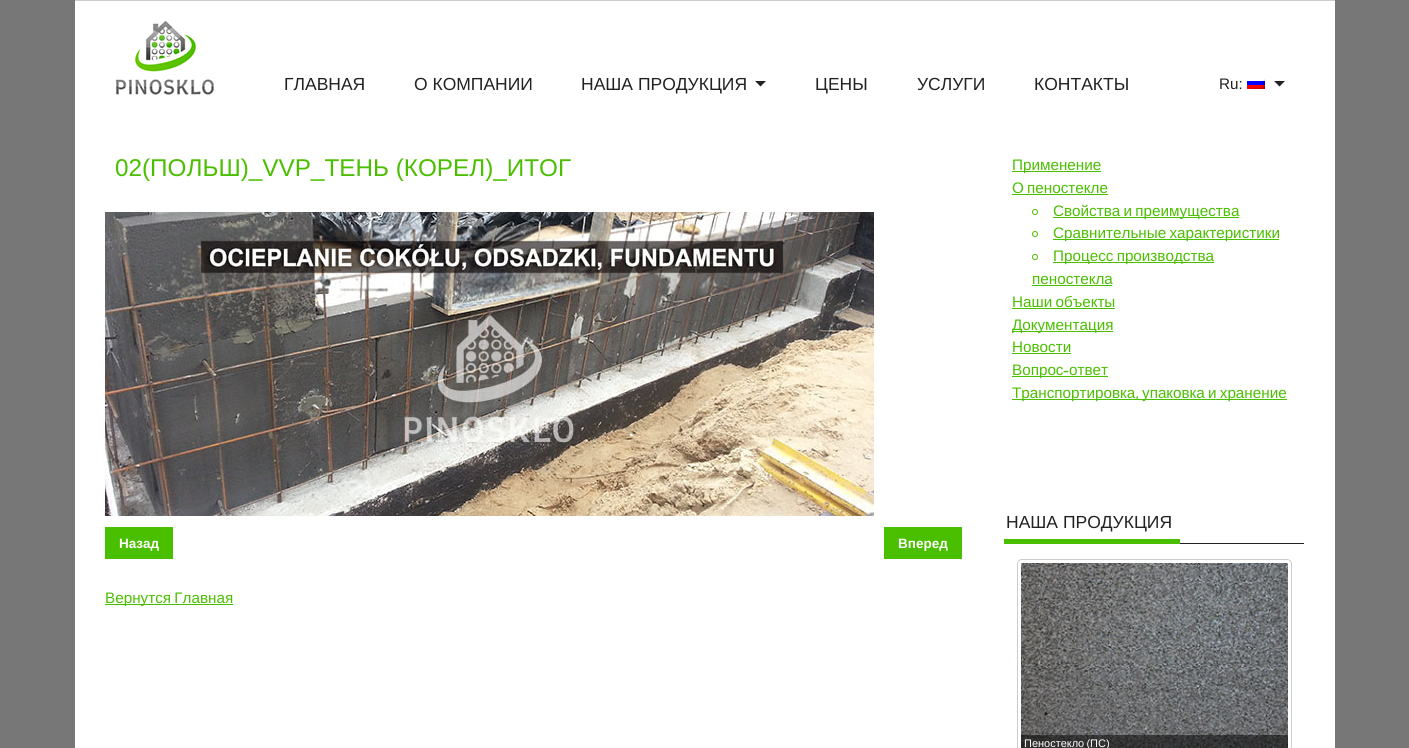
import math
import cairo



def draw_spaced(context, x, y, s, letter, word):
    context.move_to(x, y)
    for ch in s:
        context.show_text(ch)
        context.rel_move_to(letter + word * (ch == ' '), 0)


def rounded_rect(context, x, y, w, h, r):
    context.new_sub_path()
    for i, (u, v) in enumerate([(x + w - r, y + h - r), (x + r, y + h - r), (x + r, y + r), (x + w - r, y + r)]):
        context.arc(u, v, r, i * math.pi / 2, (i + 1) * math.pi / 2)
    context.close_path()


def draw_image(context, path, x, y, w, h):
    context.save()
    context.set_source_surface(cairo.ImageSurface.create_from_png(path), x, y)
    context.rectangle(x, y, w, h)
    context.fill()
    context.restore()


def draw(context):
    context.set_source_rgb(119 / 255, 119 / 255, 119 / 255)
    context.paint()
    context.set_source_rgb(1, 1, 1)
    context.rectangle(75, 1, 1260, 747)
    context.fill()
    context.set_source_rgb(204 / 255, 204 / 255, 204 / 255)
    context.rectangle(75, 0, 1260, 1)
    context.fill()
    draw_image(context, "images/1.png", 115, 21, 99, 74)
    context.set_source_rgb(34 / 255, 34 / 255, 34 / 255)
    context.new_path()
    context.move_to(755, 81)
    context.line_to(766, 81)
    context.line_to(760.5, 86.5)
    context.close_path()
    context.fill()
    draw_image(context, "images/2.png", 1247, 79, 18, 10)
    context.new_path()
    context.move_to(1274, 81)
    context.line_to(1285, 81)
    context.line_to(1279.5, 86.5)
    context.close_path()
    context.fill()
    draw_image(context, "images/3.png", 105, 212, 769, 304)
    context.set_source_rgb(74 / 255, 191 / 255, 0)
    context.rectangle(105, 527, 68, 32)
    context.fill()
    context.rectangle(884, 527, 78, 32)
    context.fill()
    context.rectangle(105, 604, 128, 1)
    context.fill()
    context.rectangle(1012, 171, 89, 1)
    context.fill()
    context.rectangle(1012, 194, 96, 1)
    context.fill()
    context.arc(1035, 212, 2.5, 0, 2 * math.pi)
    context.set_line_width(1)
    context.stroke()
    context.rectangle(1053, 217, 186, 1)
    context.fill()
    context.arc(1035, 234, 2.5, 0, 2 * math.pi)
    context.stroke()
    context.rectangle(1053, 239, 226, 1)
    context.fill()
    context.arc(1035, 257, 2.5, 0, 2 * math.pi)
    context.stroke()
    context.rectangle(1053, 262, 161, 1)
    context.fill()
    context.rectangle(1032, 285, 80, 1)
    context.fill()
    context.rectangle(1012, 308, 103, 1)
    context.fill()
    context.rectangle(1012, 331, 101, 1)
    context.fill()
    context.rectangle(1012, 353, 59, 1)
    context.fill()
    context.rectangle(1012, 376, 96, 1)
    context.fill()
    context.rectangle(1012, 399, 275, 1)
    context.fill()
    context.set_source_rgb(34 / 255, 34 / 255, 34 / 255)
    context.rectangle(1180, 543, 124, 1)
    context.fill()
    context.set_source_rgb(74 / 255, 191 / 255, 0)
    context.rectangle(1004, 539, 176, 5)
    context.fill()
    rounded_rect(context, 1017.5, 559.5, 274, 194, 4.5)
    context.set_source_rgb(204 / 255, 204 / 255, 204 / 255)
    context.stroke()
    draw_image(context, "images/4.png", 1021, 563, 267, 185)
    context.set_source_rgba(0, 0, 0, 0.5)
    context.rectangle(1021, 735, 267, 13)
    context.fill()
    context.select_font_face("Liberation Sans")
    context.set_font_size(17.5)
    context.set_source_rgb(34 / 255, 34 / 255, 34 / 255)
    context.move_to(284, 90)
    context.show_text("ГЛАВНАЯ")
    context.move_to(414, 90)
    context.show_text("О КОМПАНИИ")
    context.move_to(581, 90)
    context.show_text("НАША ПРОДУКЦИЯ")
    context.move_to(815, 90)
    context.show_text("ЦЕНЫ")
    context.move_to(917, 90)
    context.show_text("УСЛУГИ")
    context.move_to(1034, 90)
    context.show_text("КОНТАКТЫ")
    context.set_font_size(15.25)
    context.move_to(1219, 89)
    context.show_text("Ru:")
    context.set_font_size(24.3)
    context.set_source_rgb(74 / 255, 191 / 255, 0)
    context.move_to(115, 176)
    context.show_text("02(ПОЛЬШ)_VVP_ТЕНЬ (КОРЕЛ)_ИТОГ")
    context.select_font_face("Liberation Sans", cairo.FontSlant.NORMAL, cairo.FontWeight.BOLD)
    context.set_font_size(13.5)
    context.set_source_rgb(1, 1, 1)
    context.move_to(119, 548)
    context.show_text("Назад")
    context.move_to(898, 548)
    context.show_text("Вперед")
    context.select_font_face("Liberation Sans")
    context.set_font_size(15.25)
    context.set_source_rgb(74 / 255, 191 / 255, 0)
    draw_spaced(context, 105, 603, "Вернутся Главная", 0, -1)
    context.move_to(1012, 170)
    context.show_text("Применение")
    draw_spaced(context, 1012, 193, "О пеностекле", 0, -1)
    draw_spaced(context, 1053, 216, "Свойства и преимущества", 0, -1)
    draw_spaced(context, 1053, 238, "Сравнительные характеристики", 0, -1)
    draw_spaced(context, 1053, 261, "Процесс производства", 0, -1)
    context.move_to(1032, 284)
    context.show_text("пеностекла")
    draw_spaced(context, 1012, 307, "Наши объекты", 0, -1)
    context.move_to(1012, 330)
    context.show_text("Документация")
    context.move_to(1012, 352)
    context.show_text("Новости")
    context.move_to(1012, 375)
    context.show_text("Вопрос")
    context.select_font_face("Carme")
    context.move_to(1063, 375)
    context.show_text("-")
    context.select_font_face("Liberation Sans")
    context.move_to(1069, 375)
    context.show_text("ответ")
    context.move_to(1012, 398)
    context.show_text("Транспортировка")
    context.select_font_face("Carme")
    context.move_to(1135, 398)
    context.show_text(",")
    context.select_font_face("Liberation Sans")
    draw_spaced(context, 1142, 398, "упаковка и хранение", 0, -1)
    context.set_font_size(17.5)
    context.set_source_rgb(34 / 255, 34 / 255, 34 / 255)
    context.move_to(1006, 528)
    context.show_text("НАША ПРОДУКЦИЯ")
    context.set_font_size(11)
    context.set_source_rgb(1, 1, 1)
    context.move_to(1024, 747)
    context.show_text("Пеностекло")
    context.select_font_face("Carme")
    context.move_to(1087, 747)
    context.show_text("(")
    context.select_font_face("Liberation Sans")
    context.move_to(1090, 747)
    context.show_text("ПС")
    context.select_font_face("Carme")
    context.move_to(1106, 747)
    context.show_text(")")


surface = cairo.ImageSurface(cairo.Format.RGB24, 1409, 748)
context = cairo.Context(surface)
options = cairo.FontOptions()
options.set_hint_metrics(cairo.HintMetrics.OFF)
options.set_hint_style(cairo.HintStyle.NONE)
context.set_font_options(options)
context.set_miter_limit(4)
draw(context)
surface.write_to_png("out.png")
